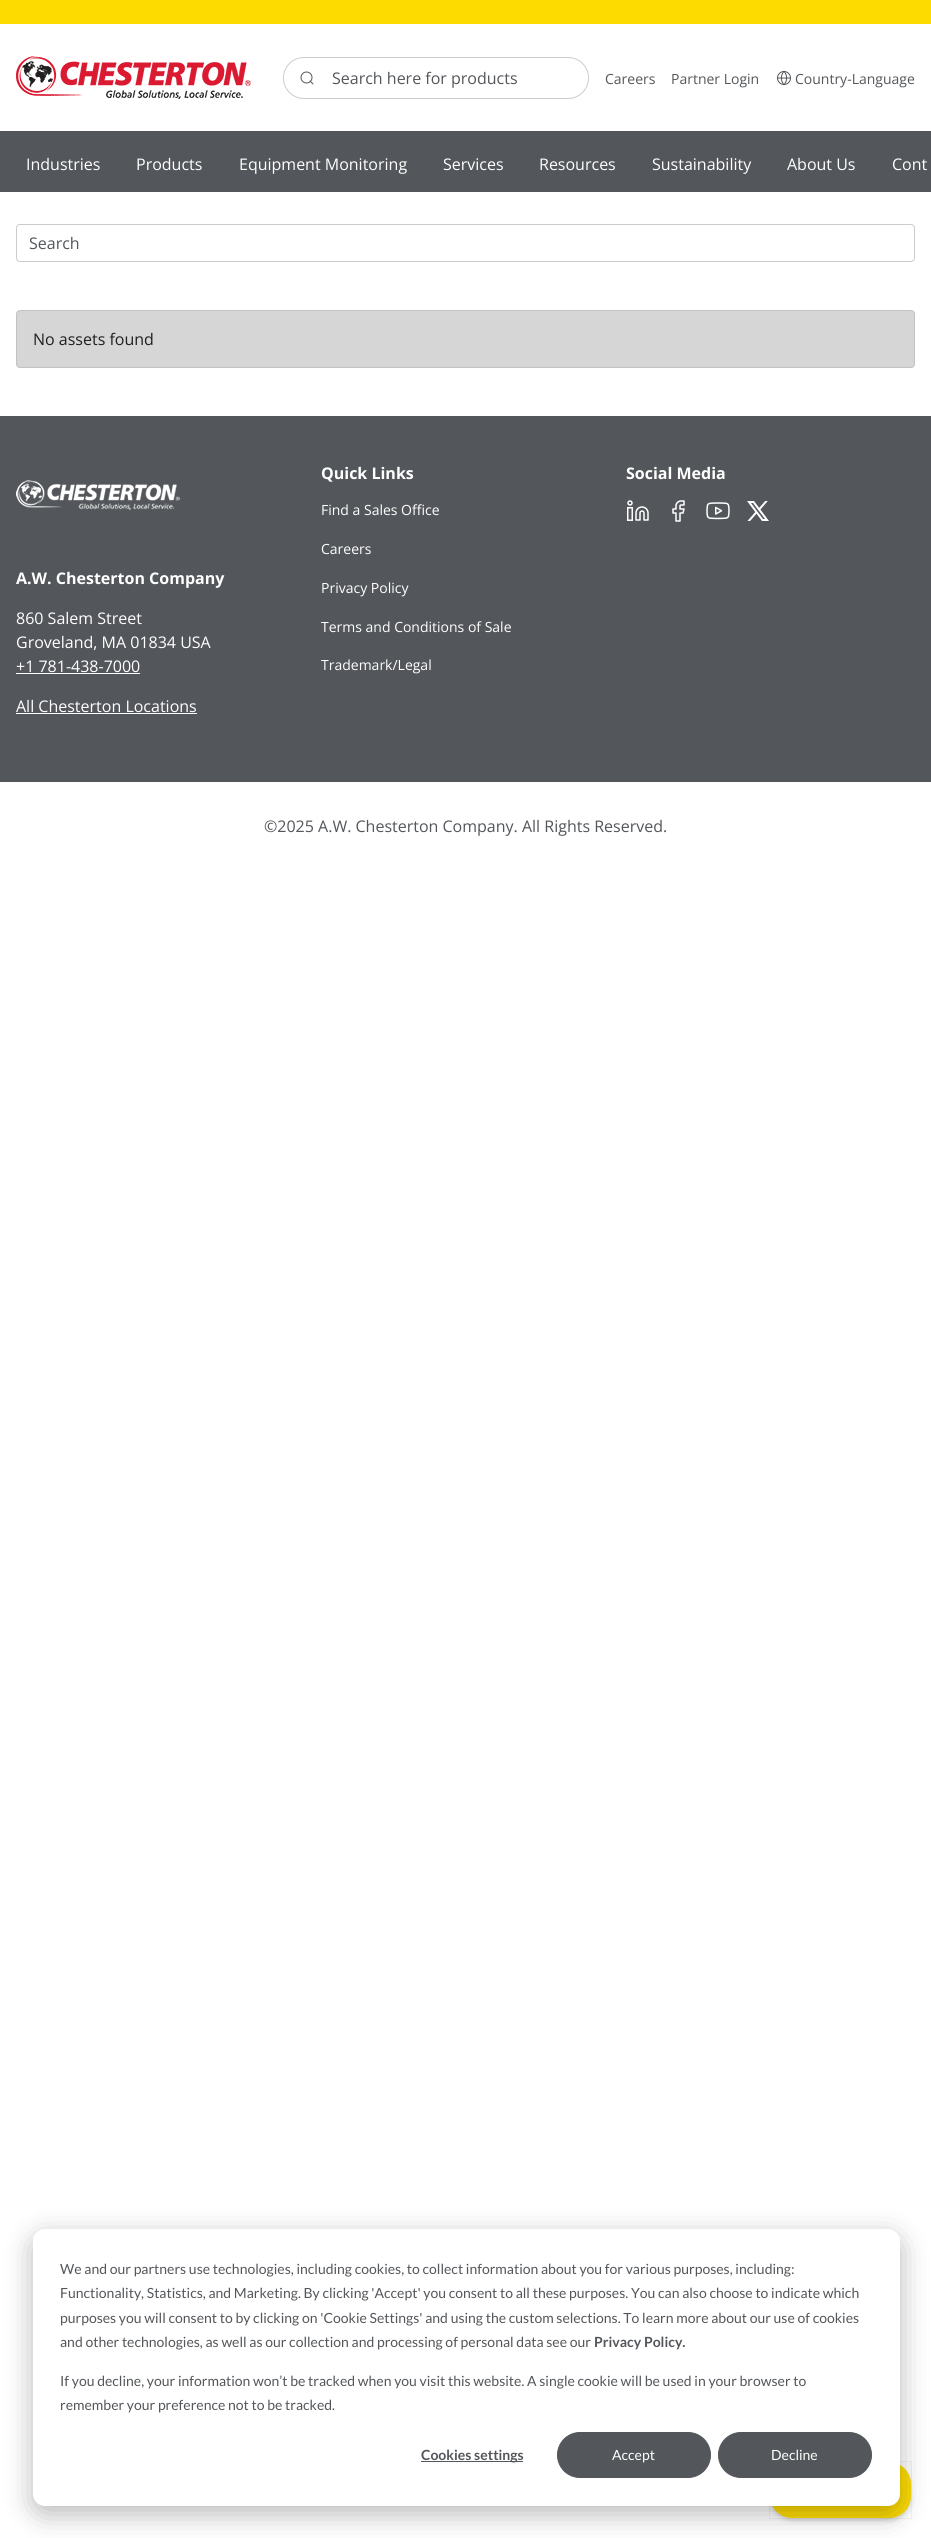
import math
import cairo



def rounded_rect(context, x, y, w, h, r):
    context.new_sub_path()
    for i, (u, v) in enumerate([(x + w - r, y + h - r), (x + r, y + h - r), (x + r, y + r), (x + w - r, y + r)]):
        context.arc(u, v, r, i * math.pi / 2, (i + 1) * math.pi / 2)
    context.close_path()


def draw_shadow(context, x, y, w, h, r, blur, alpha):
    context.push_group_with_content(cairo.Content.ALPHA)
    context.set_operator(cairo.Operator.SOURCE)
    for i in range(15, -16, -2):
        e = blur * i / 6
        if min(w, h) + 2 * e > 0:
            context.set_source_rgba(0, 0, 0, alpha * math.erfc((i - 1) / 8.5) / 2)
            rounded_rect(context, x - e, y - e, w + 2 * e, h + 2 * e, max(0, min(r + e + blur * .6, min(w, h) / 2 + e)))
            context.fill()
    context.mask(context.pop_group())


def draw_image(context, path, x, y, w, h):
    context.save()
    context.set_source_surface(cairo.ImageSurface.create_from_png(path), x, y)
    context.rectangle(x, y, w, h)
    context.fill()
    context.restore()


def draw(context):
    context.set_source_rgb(1, 1, 1)
    context.paint()
    context.set_source_rgb(254 / 255, 219 / 255, 0)
    context.rectangle(0, 0, 931, 24)
    context.fill()
    draw_image(context, "images/1.png", 16, 56, 235, 43)
    rounded_rect(context, 283.5, 57.5, 305, 41, 20.5)
    context.set_source_rgb(203 / 255, 204 / 255, 206 / 255)
    context.set_line_width(1)
    context.stroke()
    context.arc(306.5, 77.5, 5.5, 0, 2 * math.pi)
    context.set_source_rgb(83 / 255, 86 / 255, 90 / 255)
    context.stroke()
    context.new_path()
    context.move_to(313, 84)
    context.line_to(310, 81)
    context.set_line_cap(cairo.LineCap.ROUND)
    context.set_line_join(cairo.LineJoin.ROUND)
    context.stroke()
    draw_image(context, "images/2.png", 776, 70, 16, 16)
    context.rectangle(0, 131, 931, 61)
    context.fill()
    rounded_rect(context, 16.5, 224.5, 898, 37, 3.5)
    context.set_source_rgb(203 / 255, 204 / 255, 206 / 255)
    context.set_line_cap(cairo.LineCap.BUTT)
    context.set_line_join(cairo.LineJoin.MITER)
    context.stroke()
    context.set_source_rgb(214 / 255, 214 / 255, 214 / 255)
    rounded_rect(context, 16.5, 310.5, 898, 57, 3.5)
    context.fill_preserve()
    context.set_source_rgb(194 / 255, 194 / 255, 194 / 255)
    context.stroke()
    context.set_source_rgb(83 / 255, 86 / 255, 90 / 255)
    context.rectangle(0, 416, 931, 366)
    context.fill()
    draw_image(context, "images/3.png", 627, 500, 22, 21)
    draw_image(context, "images/4.png", 672, 500, 13, 22)
    draw_image(context, "images/5.png", 706, 502, 24, 18)
    draw_image(context, "images/6.png", 747, 501, 22, 20)
    draw_image(context, "images/7.png", 16, 480, 164, 30)
    context.set_source_rgb(1, 1, 1)
    context.rectangle(16, 673, 124, 1)
    context.fill()
    context.rectangle(16, 713, 181, 1)
    context.fill()
    context.set_source_rgb(0, 0, 0)
    draw_shadow(context, 770, 2465, 141, 56, 22, 1.5, 0.05)
    draw_shadow(context, 770, 2465, 141, 56, 22, 2.5, 0.1)
    context.rectangle(769.5, 2461.5, 142, 57)
    context.set_source_rgba(0, 0, 0, 0.05)
    context.stroke()
    context.set_source_rgb(254 / 255, 220 / 255, 2 / 255)
    rounded_rect(context, 770, 2462, 141, 56, 22)
    context.fill()
    context.set_source_rgb(0, 0, 0)
    draw_shadow(context, 33, 2237, 867, 277, 12, 14, 0.28)
    context.set_source_rgb(1, 1, 1)
    rounded_rect(context, 33, 2229, 867, 277, 12)
    context.fill()
    context.set_source_rgb(83 / 255, 86 / 255, 90 / 255)
    context.rectangle(421, 2461, 102, 1)
    context.fill()
    rounded_rect(context, 557.5, 2432.5, 153, 45, 22.5)
    context.fill_preserve()
    context.stroke()
    rounded_rect(context, 718.5, 2432.5, 153, 45, 22.5)
    context.fill_preserve()
    context.stroke()
    context.select_font_face("Open Sans")
    context.set_font_size(16)
    context.move_to(332, 84)
    context.show_text("Search here for products")
    context.set_font_size(14)
    context.move_to(605, 84)
    context.show_text("Careers")
    context.move_to(671, 84)
    context.show_text("Partner Login")
    context.move_to(795, 84)
    context.show_text("Country-Language")
    context.set_font_size(16)
    context.set_source_rgb(1, 1, 1)
    context.move_to(26, 170)
    context.show_text("Industries")
    context.move_to(136, 170)
    context.show_text("Products")
    context.move_to(239, 170)
    context.show_text("Equipment Monitoring")
    context.move_to(443, 170)
    context.show_text("Services")
    context.move_to(539, 170)
    context.show_text("Resources")
    context.move_to(652, 170)
    context.show_text("Sustainability")
    context.move_to(787, 170)
    context.show_text("About Us")
    context.move_to(892, 170)
    context.show_text("Cont")
    context.set_source_rgb(83 / 255, 86 / 255, 90 / 255)
    context.move_to(29, 249)
    context.show_text("Search")
    context.set_source_rgb(31 / 255, 31 / 255, 31 / 255)
    context.move_to(33, 345)
    context.show_text("No assets found")
    context.select_font_face("Open Sans", cairo.FontSlant.NORMAL, cairo.FontWeight.BOLD)
    context.set_source_rgb(1, 1, 1)
    context.move_to(321, 479)
    context.show_text("Quick Links")
    context.select_font_face("Open Sans")
    context.set_font_size(14)
    context.move_to(321, 515)
    context.show_text("Find a Sales Office")
    context.move_to(321, 554)
    context.show_text("Careers")
    context.move_to(321, 593)
    context.show_text("Privacy Policy")
    context.move_to(321, 632)
    context.show_text("Terms and Conditions of Sale")
    context.move_to(321, 670)
    context.show_text("Trademark/Legal")
    context.select_font_face("Open Sans", cairo.FontSlant.NORMAL, cairo.FontWeight.BOLD)
    context.set_font_size(16)
    context.move_to(626, 479)
    context.show_text("Social Media")
    context.move_to(16, 584)
    context.show_text("A.W. Chesterton Company")
    context.select_font_face("Open Sans")
    context.move_to(16, 624)
    context.show_text("860 Salem Street")
    context.move_to(16, 648)
    context.show_text("Groveland, MA 01834 USA")
    context.move_to(16, 672)
    context.show_text("+1 781-438-7000")
    context.move_to(16, 712)
    context.show_text("All Chesterton Locations")
    context.set_source_rgb(83 / 255, 86 / 255, 90 / 255)
    context.move_to(264, 832)
    context.show_text("©2025 A.W. Chesterton Company. All Rights Reserved.")
    context.select_font_face("Lato")
    context.set_font_size(14)
    context.move_to(60, 2274)
    context.show_text("We and our partners use technologies, including cookies, to collect information about you for various purposes, including:")
    context.move_to(60, 2298)
    context.show_text("Functionality, Statistics, and Marketing. By clicking 'Accept' you consent to all these purposes. You can also choose to indicate which")
    context.move_to(60, 2323)
    context.show_text("purposes you will consent to by clicking on 'Cookie Settings' and using the custom selections. To learn more about our use of cookies")
    context.move_to(60, 2347)
    context.show_text("and other technologies, as well as our collection and processing of personal data see our")
    context.select_font_face("Lato", cairo.FontSlant.NORMAL, cairo.FontWeight.BOLD)
    context.move_to(594, 2347)
    context.show_text("Privacy Policy.")
    context.select_font_face("Lato")
    context.move_to(60, 2386)
    context.show_text("If you decline, your information won’t be tracked when you visit this website. A single cookie will be used in your browser to")
    context.move_to(60, 2410)
    context.show_text("remember your preference not to be tracked.")
    context.select_font_face("Lato", cairo.FontSlant.NORMAL, cairo.FontWeight.BOLD)
    context.move_to(421, 2460)
    context.show_text("Cookies settings")
    context.select_font_face("Lato")
    context.set_source_rgb(1, 1, 1)
    context.move_to(612, 2460)
    context.show_text("Accept")
    context.move_to(771, 2460)
    context.show_text("Decline")


surface = cairo.ImageSurface(cairo.Format.RGB24, 931, 2538)
context = cairo.Context(surface)
options = cairo.FontOptions()
options.set_hint_metrics(cairo.HintMetrics.OFF)
options.set_hint_style(cairo.HintStyle.NONE)
context.set_font_options(options)
context.set_miter_limit(4)
draw(context)
surface.write_to_png("out.png")
